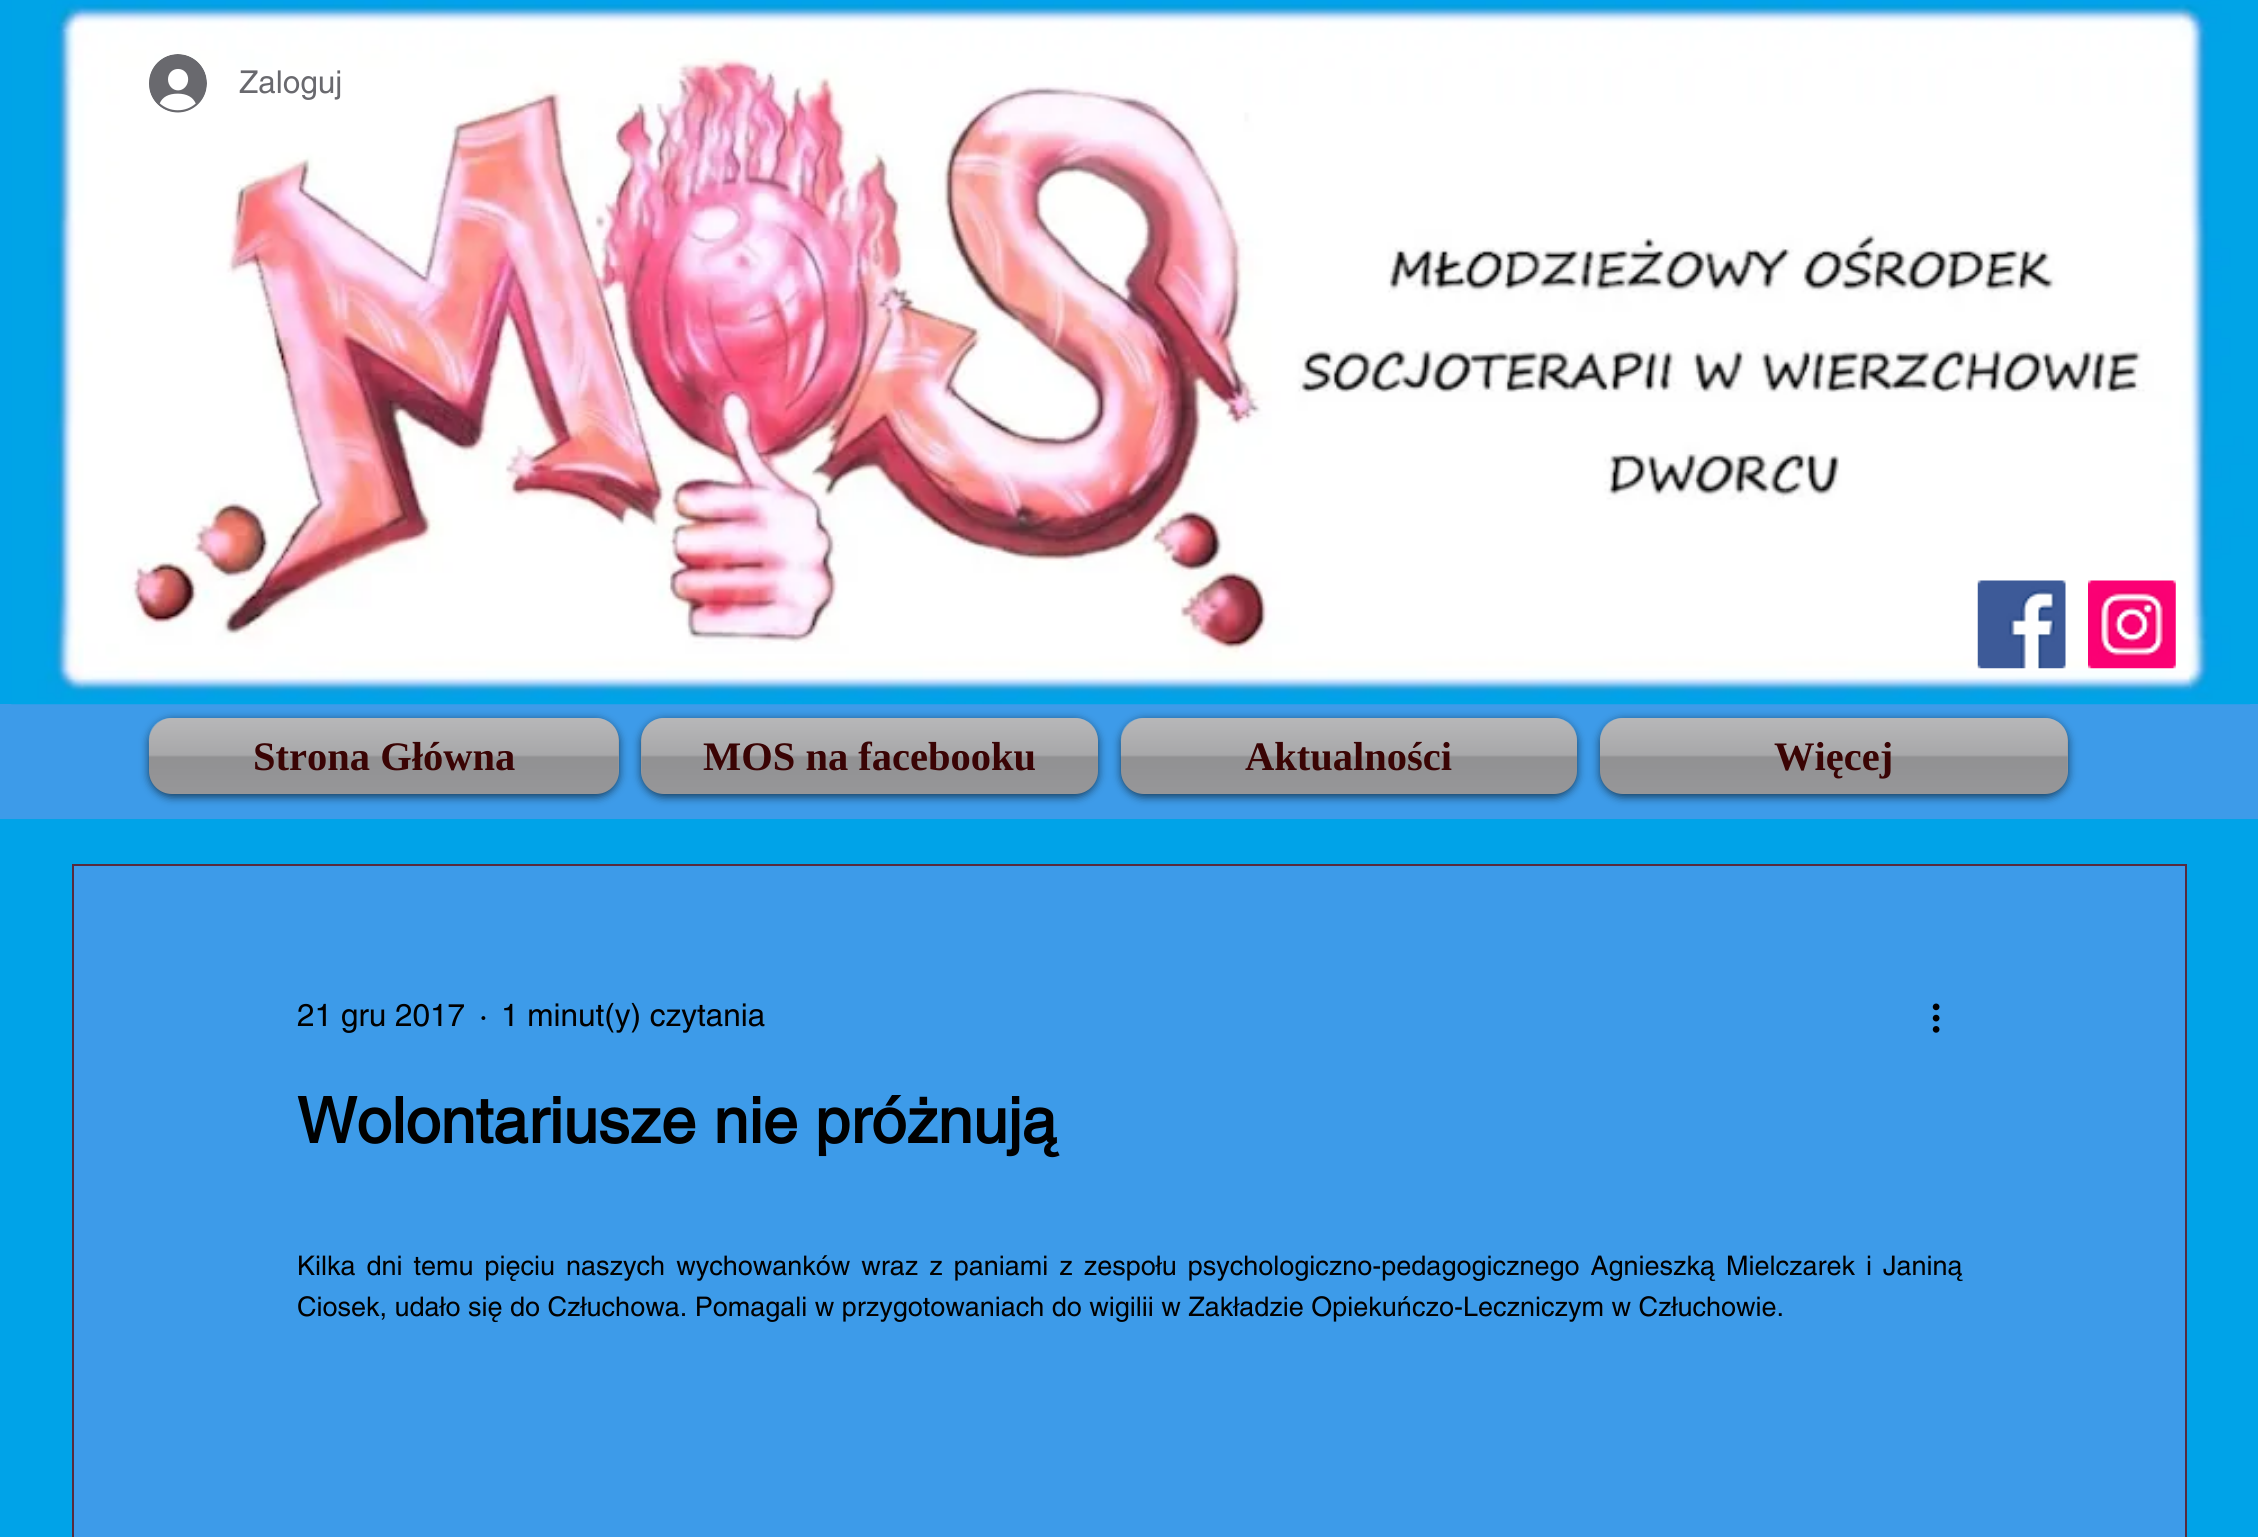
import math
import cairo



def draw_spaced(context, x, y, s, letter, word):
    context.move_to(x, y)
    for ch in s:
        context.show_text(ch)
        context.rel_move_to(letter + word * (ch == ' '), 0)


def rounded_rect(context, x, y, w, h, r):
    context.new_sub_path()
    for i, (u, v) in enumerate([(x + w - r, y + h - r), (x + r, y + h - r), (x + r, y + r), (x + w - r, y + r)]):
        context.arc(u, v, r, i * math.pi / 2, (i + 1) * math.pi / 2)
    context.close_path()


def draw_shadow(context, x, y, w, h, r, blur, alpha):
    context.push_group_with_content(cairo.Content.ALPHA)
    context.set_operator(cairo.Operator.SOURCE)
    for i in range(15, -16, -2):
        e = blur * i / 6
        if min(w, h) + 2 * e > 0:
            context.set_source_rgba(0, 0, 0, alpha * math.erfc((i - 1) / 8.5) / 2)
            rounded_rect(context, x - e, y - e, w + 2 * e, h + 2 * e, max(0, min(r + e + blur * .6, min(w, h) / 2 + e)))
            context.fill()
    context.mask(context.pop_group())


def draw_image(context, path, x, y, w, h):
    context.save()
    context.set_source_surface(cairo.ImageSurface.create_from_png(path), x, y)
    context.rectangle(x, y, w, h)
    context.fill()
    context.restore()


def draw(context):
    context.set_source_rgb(0, 163 / 255, 232 / 255)
    context.paint()
    context.set_source_rgb(61 / 255, 155 / 255, 233 / 255)
    context.rectangle(0, 704, 2258, 115)
    context.fill()
    draw_image(context, "images/1.png", 11, 0, 2239, 705)
    draw_image(context, "images/2.png", 149, 54, 58, 59)
    draw_image(context, "images/3.png", 1977, 580, 89, 89)
    draw_image(context, "images/4.png", 2088, 580, 88, 89)
    context.set_source_rgb(0, 0, 0)
    draw_shadow(context, 149, 720, 470, 77, 23, 4.5, 0.6)
    context.set_source_rgb(156 / 255, 156 / 255, 158 / 255)
    rounded_rect(context, 149, 718, 470, 76, 23)
    context.fill()
    draw_image(context, "images/5.png", 148, 718, 471, 76)
    context.set_source_rgb(0, 0, 0)
    draw_shadow(context, 641, 720, 457, 77, 23, 4.5, 0.6)
    context.set_source_rgb(156 / 255, 156 / 255, 158 / 255)
    rounded_rect(context, 641, 718, 457, 76, 23)
    context.fill()
    draw_image(context, "images/6.png", 641, 718, 457, 76)
    context.set_source_rgb(0, 0, 0)
    draw_shadow(context, 1121, 720, 456, 77, 23, 4.5, 0.6)
    context.set_source_rgb(156 / 255, 156 / 255, 158 / 255)
    rounded_rect(context, 1121, 718, 456, 76, 23)
    context.fill()
    draw_image(context, "images/7.png", 1120, 718, 457, 76)
    context.set_source_rgb(0, 0, 0)
    draw_shadow(context, 1600, 720, 468, 77, 23, 4.5, 0.6)
    context.set_source_rgb(156 / 255, 156 / 255, 158 / 255)
    rounded_rect(context, 1600, 718, 468, 76, 23)
    context.fill()
    draw_image(context, "images/8.png", 1600, 718, 468, 76)
    context.set_source_rgb(61 / 255, 155 / 255, 233 / 255)
    context.rectangle(73, 865, 2113, 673)
    context.fill_preserve()
    context.set_source_rgb(87 / 255, 43 / 255, 62 / 255)
    context.stroke()
    draw_image(context, "images/9.png", 1932, 1003, 8, 30)
    context.select_font_face("helvetica")
    context.set_font_size(31.5)
    context.set_source_rgb(105 / 255, 105 / 255, 110 / 255)
    context.move_to(239, 93)
    context.show_text("Zaloguj")
    context.select_font_face("Liberation Serif", cairo.FontSlant.NORMAL, cairo.FontWeight.BOLD)
    context.set_font_size(40.5)
    context.set_source_rgb(58 / 255, 4 / 255, 4 / 255)
    context.move_to(253, 770)
    context.show_text("Strona Główna")
    context.move_to(703, 770)
    context.show_text("MOS na facebooku")
    context.move_to(1245, 770)
    context.show_text("Aktualności")
    context.move_to(1774, 770)
    context.show_text("Więcej")
    context.select_font_face("helvetica")
    context.set_font_size(31.5)
    context.set_source_rgb(0, 0, 0)
    context.move_to(297, 1026)
    context.show_text("21 gru 2017")
    context.move_to(479, 1026)
    context.show_text("·")
    context.move_to(501, 1026)
    context.show_text("1 minut(y) czytania")
    context.select_font_face("helvetica", cairo.FontSlant.NORMAL, cairo.FontWeight.BOLD)
    context.set_font_size(63)
    context.move_to(297, 1143)
    context.show_text("Wolontariusze nie próżnują")
    context.select_font_face("helvetica")
    context.set_font_size(27)
    draw_spaced(context, 297, 1275, "Kilka dni temu pięciu naszych wychowanków wraz z paniami z zespołu psychologiczno-pedagogicznego Agnieszką Mielczarek i Janiną", 0, 3.5)
    context.move_to(297, 1316)
    context.show_text("Ciosek, udało się do Człuchowa. Pomagali w przygotowaniach do wigilii w Zakładzie Opiekuńczo-Leczniczym w Człuchowie.")


surface = cairo.ImageSurface(cairo.Format.RGB24, 2258, 1537)
context = cairo.Context(surface)
options = cairo.FontOptions()
options.set_hint_metrics(cairo.HintMetrics.OFF)
options.set_hint_style(cairo.HintStyle.NONE)
context.set_font_options(options)
context.set_miter_limit(4)
draw(context)
surface.write_to_png("out.png")
